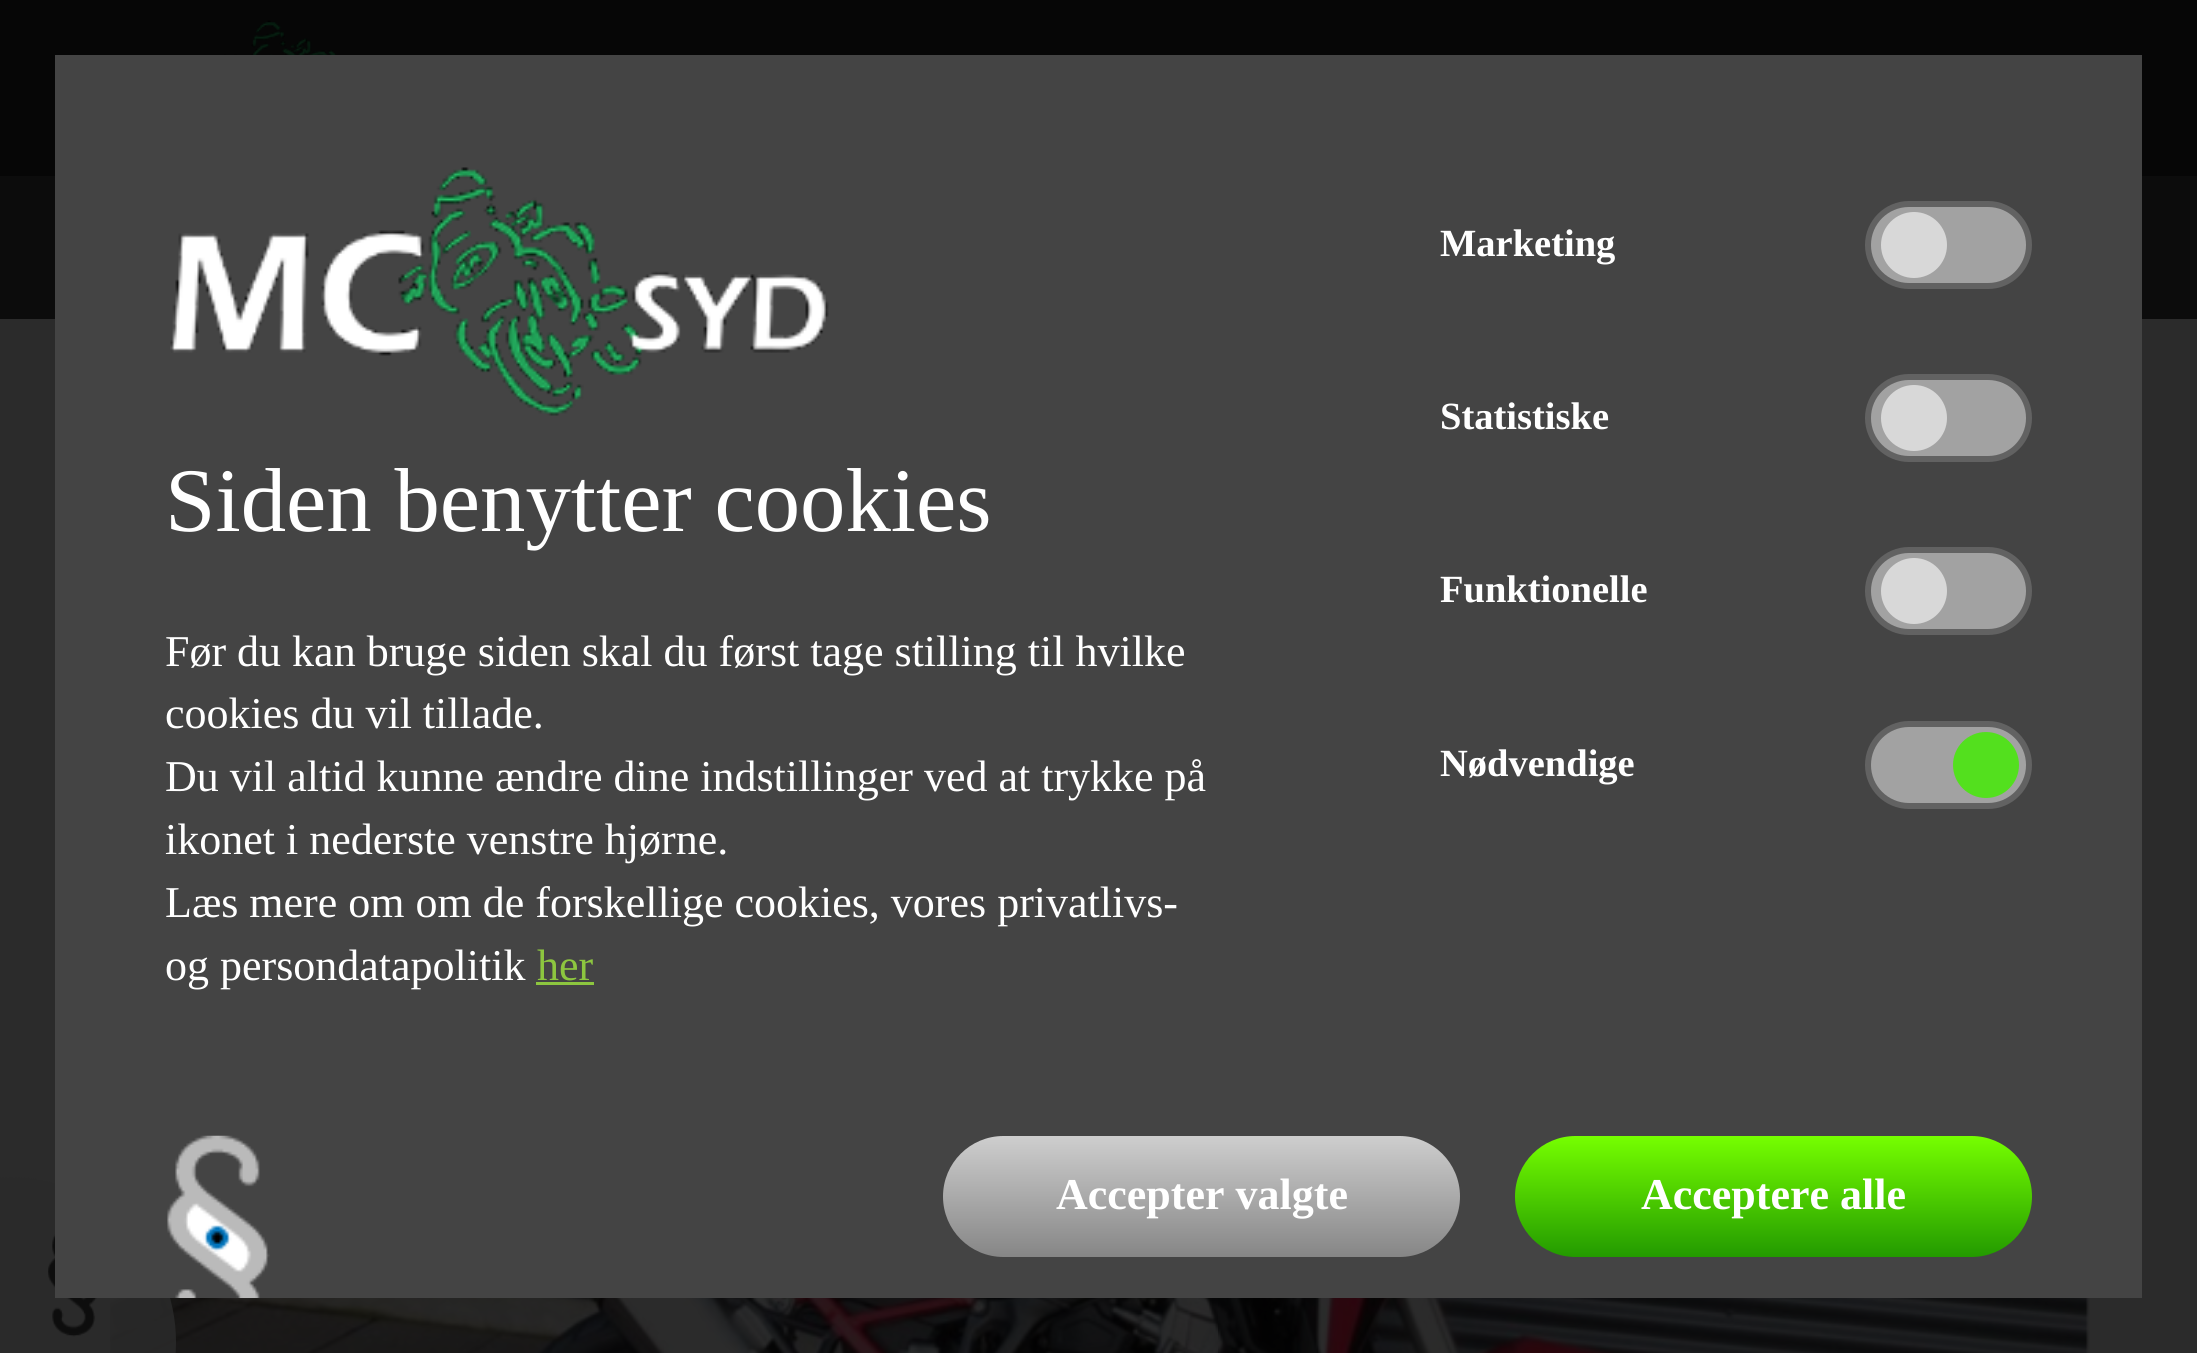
import math
import cairo



def rounded_rect(context, x, y, w, h, r):
    context.new_sub_path()
    for i, (u, v) in enumerate([(x + w - r, y + h - r), (x + r, y + h - r), (x + r, y + r), (x + w - r, y + r)]):
        context.arc(u, v, r, i * math.pi / 2, (i + 1) * math.pi / 2)
    context.close_path()


def draw_image(context, path, x, y, w, h):
    context.save()
    context.set_source_surface(cairo.ImageSurface.create_from_png(path), x, y)
    context.rectangle(x, y, w, h)
    context.fill()
    context.restore()


def draw(context):
    context.set_source_rgb(43 / 255, 43 / 255, 43 / 255)
    context.paint()
    context.set_source_rgb(6 / 255, 6 / 255, 6 / 255)
    context.rectangle(0, 0, 2197, 176)
    context.fill()
    context.set_source_rgb(12 / 255, 12 / 255, 12 / 255)
    context.rectangle(0, 176, 2197, 143)
    context.fill()
    draw_image(context, "images/1.png", 223, 20, 114, 35)
    draw_image(context, "images/5.png", 110, 1298, 1980, 55)
    context.set_source_rgba(43 / 255, 43 / 255, 43 / 255, 0.83)
    context.arc(11, 1342, 165, 0, 2 * math.pi)
    context.fill()
    draw_image(context, "images/4.png", 48, 1234, 49, 103)
    context.set_source_rgb(68 / 255, 68 / 255, 68 / 255)
    context.rectangle(55, 55, 2087, 1243)
    context.fill()
    draw_image(context, "images/2.png", 170, 167, 659, 249)
    context.set_source_rgb(141 / 255, 198 / 255, 63 / 255)
    context.rectangle(536, 982, 58, 3)
    context.fill()
    context.set_source_rgb(162 / 255, 162 / 255, 162 / 255)
    rounded_rect(context, 1868, 204, 161, 82, 41)
    context.fill_preserve()
    context.set_source_rgb(98 / 255, 98 / 255, 98 / 255)
    context.set_line_width(6)
    context.stroke()
    context.set_source_rgb(216 / 255, 216 / 255, 216 / 255)
    context.arc(1914, 245, 33, 0, 2 * math.pi)
    context.fill()
    context.set_source_rgb(162 / 255, 162 / 255, 162 / 255)
    rounded_rect(context, 1868, 377, 161, 82, 41)
    context.fill_preserve()
    context.set_source_rgb(98 / 255, 98 / 255, 98 / 255)
    context.stroke()
    context.set_source_rgb(216 / 255, 216 / 255, 216 / 255)
    context.arc(1914, 418, 33, 0, 2 * math.pi)
    context.fill()
    context.set_source_rgb(162 / 255, 162 / 255, 162 / 255)
    rounded_rect(context, 1868, 550, 161, 82, 41)
    context.fill_preserve()
    context.set_source_rgb(98 / 255, 98 / 255, 98 / 255)
    context.stroke()
    context.set_source_rgb(216 / 255, 216 / 255, 216 / 255)
    context.arc(1914, 591, 33, 0, 2 * math.pi)
    context.fill()
    context.set_source_rgb(162 / 255, 162 / 255, 162 / 255)
    rounded_rect(context, 1868, 724, 161, 82, 41)
    context.fill_preserve()
    context.set_source_rgb(98 / 255, 98 / 255, 98 / 255)
    context.stroke()
    context.set_source_rgb(83 / 255, 224 / 255, 30 / 255)
    context.arc(1986, 765, 33, 0, 2 * math.pi)
    context.fill()
    draw_image(context, "images/3.png", 167, 1135, 103, 163)
    gradient = cairo.LinearGradient(1202, 1136, 1202, 1257)
    gradient.add_color_stop_rgba(0, 206 / 255, 206 / 255, 206 / 255, 1)
    gradient.add_color_stop_rgba(1, 134 / 255, 134 / 255, 134 / 255, 1)
    context.set_source(gradient)
    rounded_rect(context, 943, 1136, 517, 121, 60.5)
    context.fill()
    gradient = cairo.LinearGradient(1774, 1136, 1774, 1257)
    gradient.add_color_stop_rgba(0, 118 / 255, 1, 0, 1)
    gradient.add_color_stop_rgba(1, 35 / 255, 154 / 255, 0, 1)
    context.set_source(gradient)
    rounded_rect(context, 1515, 1136, 517, 121, 60.5)
    context.fill()
    context.select_font_face("Liberation Serif")
    context.set_font_size(90.75)
    context.set_source_rgb(1, 1, 1)
    context.move_to(165, 531)
    context.show_text("Siden benytter cookies")
    context.set_font_size(44)
    context.move_to(165, 666)
    context.show_text("Før du kan bruge siden skal du først tage stilling til hvilke")
    context.move_to(165, 728)
    context.show_text("cookies du vil tillade.")
    context.move_to(165, 791)
    context.show_text("Du vil altid kunne ændre dine indstillinger ved at trykke på")
    context.move_to(165, 854)
    context.show_text("ikonet i nederste venstre hjørne.")
    context.move_to(165, 917)
    context.show_text("Læs mere om om de forskellige cookies, vores privatlivs-")
    context.move_to(165, 980)
    context.show_text("og persondatapolitik")
    context.set_source_rgb(141 / 255, 198 / 255, 63 / 255)
    context.move_to(537, 980)
    context.show_text("her")
    context.select_font_face("Liberation Serif", cairo.FontSlant.NORMAL, cairo.FontWeight.BOLD)
    context.set_font_size(38.5)
    context.set_source_rgb(1, 1, 1)
    context.move_to(1440, 256)
    context.show_text("Marketing")
    context.move_to(1440, 429)
    context.show_text("Statistiske")
    context.move_to(1440, 602)
    context.show_text("Funktionelle")
    context.move_to(1440, 776)
    context.show_text("Nødvendige")
    context.set_font_size(44)
    context.move_to(1056, 1209)
    context.show_text("Accepter valgte")
    context.move_to(1641, 1209)
    context.show_text("Acceptere alle")


surface = cairo.ImageSurface(cairo.Format.RGB24, 2197, 1353)
context = cairo.Context(surface)
options = cairo.FontOptions()
options.set_hint_metrics(cairo.HintMetrics.OFF)
options.set_hint_style(cairo.HintStyle.NONE)
context.set_font_options(options)
context.set_miter_limit(4)
draw(context)
surface.write_to_png("out.png")
